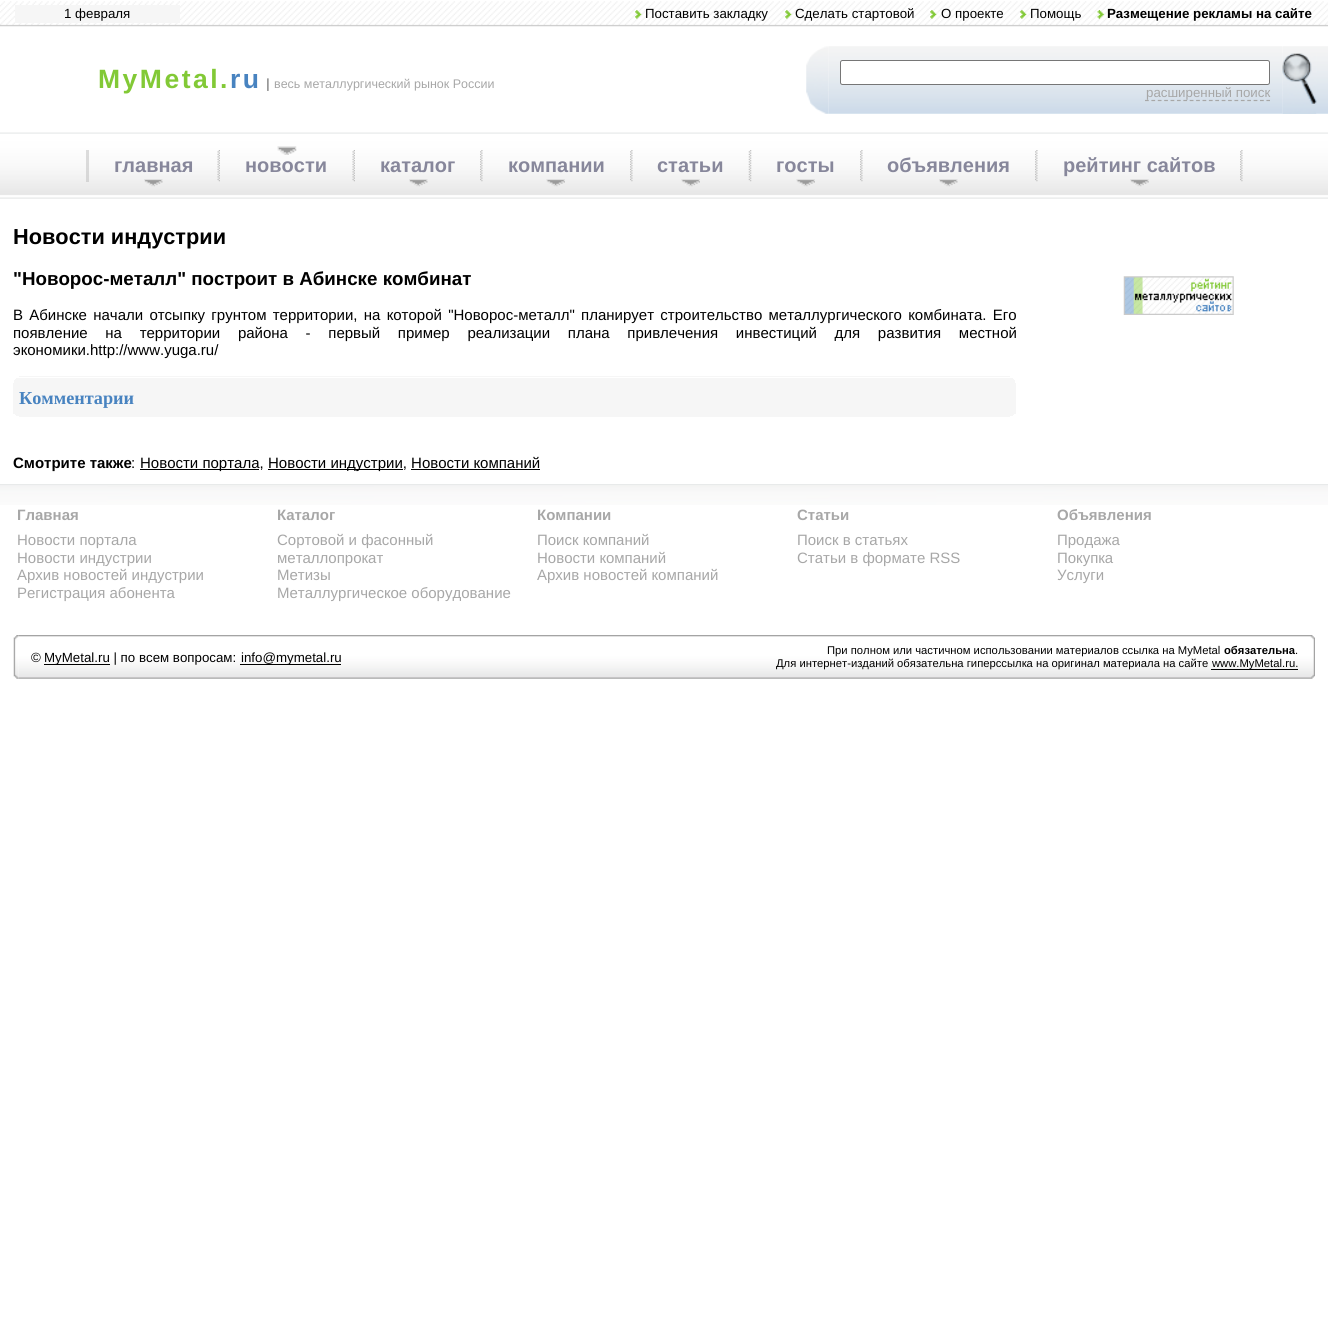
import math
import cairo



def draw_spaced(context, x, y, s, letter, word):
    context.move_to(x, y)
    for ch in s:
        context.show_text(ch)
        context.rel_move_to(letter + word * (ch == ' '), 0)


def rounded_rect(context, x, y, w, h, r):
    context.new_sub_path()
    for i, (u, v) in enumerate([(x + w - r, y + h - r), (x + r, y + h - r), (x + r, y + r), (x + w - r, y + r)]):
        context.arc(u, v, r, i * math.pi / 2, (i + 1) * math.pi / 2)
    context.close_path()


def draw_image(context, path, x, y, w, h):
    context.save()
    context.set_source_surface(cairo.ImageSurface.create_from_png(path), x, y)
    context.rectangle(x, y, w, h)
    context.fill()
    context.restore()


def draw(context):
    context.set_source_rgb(1, 1, 1)
    context.paint()
    draw_image(context, "images/1.png", 0, 1, 1328, 26)
    context.set_source_rgb(246 / 255, 246 / 255, 246 / 255)
    context.rectangle(15, 5, 165, 18)
    context.fill()
    draw_image(context, "images/2.png", 635, 10, 7, 9)
    draw_image(context, "images/3.png", 785, 10, 7, 9)
    draw_image(context, "images/4.png", 930, 10, 7, 9)
    draw_image(context, "images/5.png", 1020, 10, 7, 9)
    draw_image(context, "images/6.png", 1097, 10, 7, 9)
    draw_image(context, "images/8.png", 828, 46, 455, 68)
    draw_image(context, "images/7.png", 806, 46, 23, 68)
    context.set_source_rgb(1, 1, 1)
    rounded_rect(context, 840.5, 60.5, 429, 24, 2)
    context.fill_preserve()
    context.set_source_rgb(118 / 255, 118 / 255, 118 / 255)
    context.set_line_width(1)
    context.stroke()
    context.new_path()
    context.move_to(1145, 100.5)
    context.line_to(1270, 100.5)
    context.set_source_rgb(167 / 255, 167 / 255, 167 / 255)
    context.set_line_width(1.2)
    context.set_dash([3.75, 2.64])
    context.stroke()
    draw_image(context, "images/9.png", 1282, 46, 46, 68)
    draw_image(context, "images/10.png", 1282, 53, 35, 61)
    draw_image(context, "images/11.png", 0, 132, 1328, 67)
    context.set_source_rgba(189 / 255, 189 / 255, 189 / 255, 0.5)
    context.rectangle(86, 150, 3, 32)
    context.fill()
    draw_image(context, "images/12.png", 144, 179, 19, 8)
    draw_image(context, "images/13.png", 217, 150, 3, 32)
    draw_image(context, "images/14.png", 277, 146, 20, 9)
    draw_image(context, "images/13.png", 352, 150, 3, 32)
    draw_image(context, "images/12.png", 409, 179, 19, 8)
    draw_image(context, "images/15.png", 480, 150, 3, 32)
    draw_image(context, "images/16.png", 546, 179, 19, 8)
    draw_image(context, "images/15.png", 630, 150, 3, 32)
    draw_image(context, "images/16.png", 681, 179, 19, 8)
    draw_image(context, "images/17.png", 748, 150, 4, 32)
    draw_image(context, "images/16.png", 796, 179, 19, 8)
    draw_image(context, "images/15.png", 860, 150, 3, 32)
    draw_image(context, "images/12.png", 939, 179, 19, 8)
    draw_image(context, "images/15.png", 1035, 150, 3, 32)
    draw_image(context, "images/18.png", 1130, 179, 19, 8)
    draw_image(context, "images/15.png", 1240, 150, 3, 32)
    context.set_source_rgb(246 / 255, 246 / 255, 246 / 255)
    context.rectangle(19, 376, 991, 1)
    context.fill()
    context.rectangle(16, 378, 997, 1)
    context.fill()
    context.rectangle(15, 379, 999, 1)
    context.fill()
    context.rectangle(14, 380, 1001, 3)
    context.fill()
    context.rectangle(13, 383, 1003, 31)
    context.fill()
    context.rectangle(15, 414, 999, 1)
    context.fill()
    context.rectangle(16, 415, 997, 1)
    context.fill()
    context.rectangle(19, 416, 991, 1)
    context.fill()
    context.set_source_rgb(0, 0, 0)
    context.rectangle(140, 469, 119, 1)
    context.fill()
    context.rectangle(268, 469, 135, 1)
    context.fill()
    context.rectangle(411, 469, 129, 1)
    context.fill()
    draw_image(context, "images/19.png", 1123, 276, 111, 39)
    draw_image(context, "images/20.png", 0, 484, 1328, 21)
    draw_image(context, "images/21.png", 13, 635, 6, 44)
    draw_image(context, "images/22.png", 18, 635, 487, 44)
    context.rectangle(44, 664, 66, 1)
    context.fill()
    context.rectangle(240, 664, 101, 1)
    context.fill()
    draw_image(context, "images/23.png", 505, 635, 805, 44)
    context.rectangle(1211, 669, 87, 1)
    context.fill()
    draw_image(context, "images/24.png", 1310, 635, 5, 44)
    context.select_font_face("Liberation Sans")
    context.set_font_size(13.3)
    context.move_to(64, 18)
    context.show_text("1 февраля")
    context.move_to(645, 18)
    context.show_text("Поставить закладку")
    context.move_to(795, 18)
    context.show_text("Сделать стартовой")
    context.move_to(941, 18)
    context.show_text("О проекте")
    context.move_to(1030, 18)
    context.show_text("Помощь")
    context.select_font_face("Liberation Sans", cairo.FontSlant.NORMAL, cairo.FontWeight.BOLD)
    context.move_to(1107, 18)
    context.show_text("Размещение рекламы на сайте")
    context.set_font_size(26.5)
    context.set_source_rgb(130 / 255, 201 / 255, 54 / 255)
    draw_spaced(context, 98, 88, "MyMetal.", 2.5, 0)
    context.set_source_rgb(72 / 255, 131 / 255, 192 / 255)
    draw_spaced(context, 230, 88, "ru", 2.5, 0)
    context.set_font_size(13.3)
    context.set_source_rgb(151 / 255, 151 / 255, 151 / 255)
    context.move_to(266, 88)
    context.show_text("|")
    context.select_font_face("Liberation Sans")
    context.set_font_size(12.5)
    context.set_source_rgb(167 / 255, 167 / 255, 167 / 255)
    context.move_to(274, 88)
    context.show_text("весь металлургический рынок России")
    context.set_font_size(13.3)
    context.move_to(1146, 97)
    context.show_text("расширенный поиск")
    context.select_font_face("Liberation Sans", cairo.FontSlant.NORMAL, cairo.FontWeight.BOLD)
    context.set_font_size(20)
    context.set_source_rgb(135 / 255, 135 / 255, 155 / 255)
    context.move_to(114, 172)
    context.show_text("главная")
    context.move_to(245, 172)
    context.show_text("новости")
    context.move_to(380, 172)
    context.show_text("каталог")
    context.move_to(508, 172)
    context.show_text("компании")
    context.move_to(657, 172)
    context.show_text("статьи")
    context.move_to(776, 172)
    context.show_text("госты")
    context.move_to(887, 172)
    context.show_text("объявления")
    context.move_to(1063, 172)
    context.show_text("рейтинг сайтов")
    context.set_font_size(21.75)
    context.set_source_rgb(0, 0, 0)
    context.move_to(13, 244)
    context.show_text("Новости индустрии")
    context.set_font_size(18.75)
    context.move_to(13, 285)
    context.show_text("\"Новорос-металл\" построит в Абинске комбинат")
    context.select_font_face("Liberation Sans")
    context.set_font_size(15)
    draw_spaced(context, 13, 320, "В Абинске начали отсыпку грунтом территории, на которой \"Новорос-металл\" планирует строительство металлургического комбината. Его", 0, 2.1)
    draw_spaced(context, 13, 338, "появление на территории района - первый пример реализации плана привлечения инвестиций для развития местной", 0, 13.5)
    context.move_to(13, 355)
    context.show_text("экономики.http://www.yuga.ru/")
    context.select_font_face("Liberation Serif", cairo.FontSlant.NORMAL, cairo.FontWeight.BOLD)
    context.set_font_size(18.25)
    context.set_source_rgb(72 / 255, 131 / 255, 192 / 255)
    context.move_to(19, 404)
    context.show_text("Комментарии")
    context.select_font_face("Liberation Sans", cairo.FontSlant.NORMAL, cairo.FontWeight.BOLD)
    context.set_font_size(15)
    context.set_source_rgb(0, 0, 0)
    context.move_to(13, 468)
    context.show_text("Смотрите также")
    context.select_font_face("Liberation Sans")
    context.move_to(131, 468)
    context.show_text(":")
    context.move_to(140, 468)
    context.show_text("Новости портала,")
    context.move_to(268, 468)
    context.show_text("Новости индустрии, Новости компаний")
    context.select_font_face("Liberation Sans", cairo.FontSlant.NORMAL, cairo.FontWeight.BOLD)
    context.set_source_rgb(167 / 255, 167 / 255, 167 / 255)
    context.move_to(17, 520)
    context.show_text("Главная")
    context.select_font_face("Liberation Sans")
    context.move_to(17, 545)
    context.show_text("Новости портала")
    context.move_to(17, 563)
    context.show_text("Новости индустрии")
    context.move_to(17, 580)
    context.show_text("Архив новостей индустрии")
    context.move_to(17, 598)
    context.show_text("Регистрация абонента")
    context.select_font_face("Liberation Sans", cairo.FontSlant.NORMAL, cairo.FontWeight.BOLD)
    context.move_to(277, 520)
    context.show_text("Каталог")
    context.select_font_face("Liberation Sans")
    context.move_to(277, 545)
    context.show_text("Сортовой и фасонный")
    context.move_to(277, 563)
    context.show_text("металлопрокат")
    context.move_to(277, 580)
    context.show_text("Метизы")
    context.move_to(277, 598)
    context.show_text("Металлургическое оборудование")
    context.select_font_face("Liberation Sans", cairo.FontSlant.NORMAL, cairo.FontWeight.BOLD)
    context.move_to(537, 520)
    context.show_text("Компании")
    context.select_font_face("Liberation Sans")
    context.move_to(537, 545)
    context.show_text("Поиск компаний")
    context.move_to(537, 563)
    context.show_text("Новости компаний")
    context.move_to(537, 580)
    context.show_text("Архив новостей компаний")
    context.select_font_face("Liberation Sans", cairo.FontSlant.NORMAL, cairo.FontWeight.BOLD)
    context.move_to(797, 520)
    context.show_text("Статьи")
    context.select_font_face("Liberation Sans")
    context.move_to(797, 545)
    context.show_text("Поиск в статьях")
    context.move_to(797, 563)
    context.show_text("Статьи в формате RSS")
    context.select_font_face("Liberation Sans", cairo.FontSlant.NORMAL, cairo.FontWeight.BOLD)
    context.move_to(1057, 520)
    context.show_text("Объявления")
    context.select_font_face("Liberation Sans")
    context.move_to(1057, 545)
    context.show_text("Продажа")
    context.move_to(1057, 563)
    context.show_text("Покупка")
    context.move_to(1057, 580)
    context.show_text("Услуги")
    context.set_font_size(13.3)
    context.set_source_rgb(0, 0, 0)
    context.move_to(31, 662)
    context.show_text("©")
    context.move_to(44, 662)
    context.show_text("MyMetal.ru | по всем вопросам:")
    context.move_to(241, 662)
    context.show_text("info@mymetal.ru")
    context.set_font_size(11.25)
    context.move_to(827, 654)
    context.show_text("При полном или частичном использовании материалов ссылка на MyMetal")
    context.select_font_face("Liberation Sans", cairo.FontSlant.NORMAL, cairo.FontWeight.BOLD)
    context.move_to(1224, 654)
    context.show_text("обязательна")
    context.select_font_face("Liberation Sans")
    context.move_to(1295, 654)
    context.show_text(".")
    context.move_to(776, 667)
    context.show_text("Для интернет-изданий обязательна гиперссылка на оригинал материала на сайте")
    context.move_to(1212, 667)
    context.show_text("www.MyMetal.ru.")


surface = cairo.ImageSurface(cairo.Format.RGB24, 1328, 1341)
context = cairo.Context(surface)
options = cairo.FontOptions()
options.set_hint_metrics(cairo.HintMetrics.OFF)
options.set_hint_style(cairo.HintStyle.NONE)
context.set_font_options(options)
context.set_miter_limit(4)
draw(context)
surface.write_to_png("out.png")
